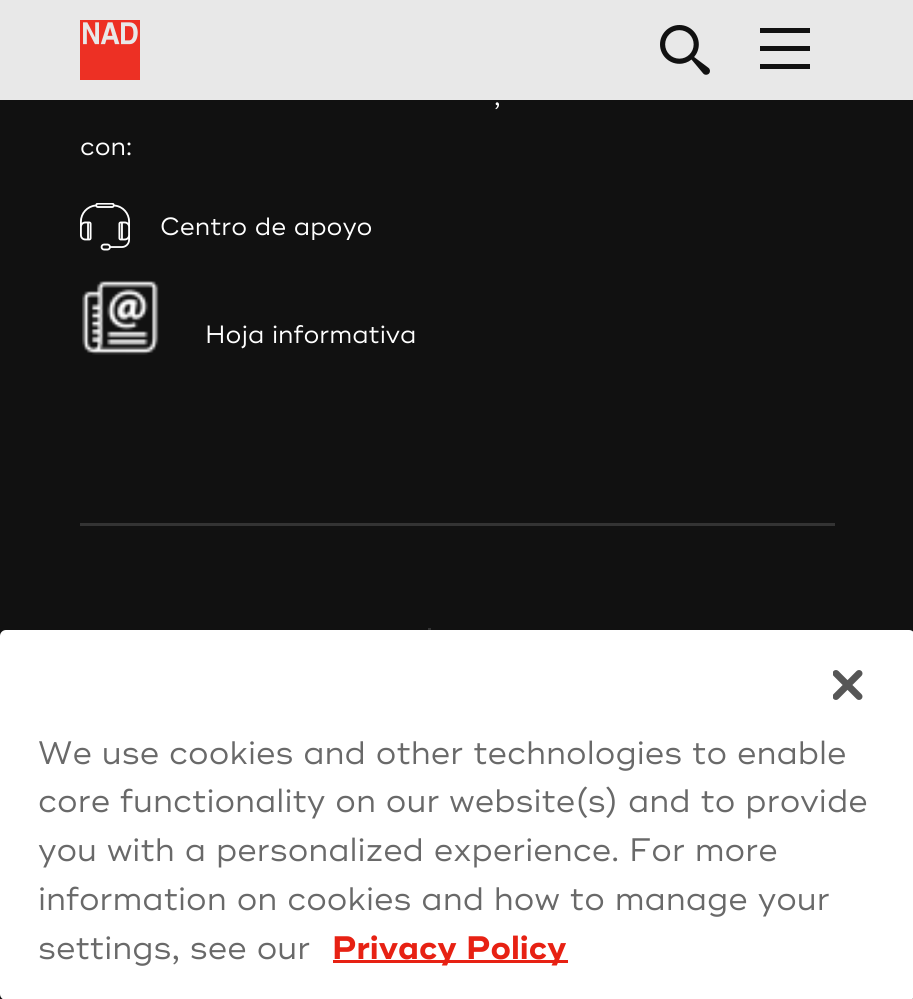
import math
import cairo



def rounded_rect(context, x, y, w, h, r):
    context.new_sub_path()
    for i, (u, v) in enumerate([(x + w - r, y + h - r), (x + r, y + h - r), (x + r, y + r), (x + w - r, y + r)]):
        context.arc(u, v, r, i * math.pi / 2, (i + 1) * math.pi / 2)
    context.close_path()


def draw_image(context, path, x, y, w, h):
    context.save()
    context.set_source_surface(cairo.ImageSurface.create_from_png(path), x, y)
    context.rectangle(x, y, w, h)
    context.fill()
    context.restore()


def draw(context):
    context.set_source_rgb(17 / 255, 17 / 255, 17 / 255)
    context.paint()
    context.set_source_rgba(1, 1, 1, 0.9)
    context.rectangle(0, 0, 913, 100)
    context.fill()
    draw_image(context, "images/1.png", 80, 20, 60, 60)
    draw_image(context, "images/2.png", 660, 25, 50, 50)
    context.set_source_rgb(17 / 255, 17 / 255, 17 / 255)
    context.rectangle(760, 28, 50, 5)
    context.fill()
    context.rectangle(760, 46, 50, 5)
    context.fill()
    context.rectangle(760, 64, 50, 5)
    context.fill()
    draw_image(context, "images/3.png", 80, 203, 50, 48)
    draw_image(context, "images/4.png", 82, 280, 77, 75)
    context.set_source_rgb(51 / 255, 51 / 255, 51 / 255)
    context.rectangle(80, 523, 755, 3)
    context.fill()
    context.rectangle(428, 628, 3, 2)
    context.fill()
    context.set_source_rgb(1, 1, 1)
    rounded_rect(context, 0, 630, 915, 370, 6)
    context.fill()
    draw_image(context, "images/5.png", 833, 670, 30, 30)
    context.set_source_rgb(231 / 255, 33 / 255, 19 / 255)
    context.rectangle(333, 960, 235, 3)
    context.fill()
    context.select_font_face("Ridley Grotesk")
    context.set_font_size(25)
    context.set_source_rgb(1, 1, 1)
    context.move_to(494, 105)
    context.show_text(",")
    context.move_to(80, 155)
    context.show_text("con:")
    context.move_to(160, 235)
    context.show_text("Centro de apoyo")
    context.move_to(205, 343)
    context.show_text("Hoja informativa")
    context.set_font_size(32.5)
    context.set_source_rgb(105 / 255, 105 / 255, 105 / 255)
    context.move_to(38, 764)
    context.show_text("We use cookies and other technologies to enable")
    context.move_to(38, 812)
    context.show_text("core functionality on our website(s) and to provide")
    context.move_to(38, 861)
    context.show_text("you with a personalized experience. For more")
    context.move_to(38, 910)
    context.show_text("information on cookies and how to manage your")
    context.move_to(38, 959)
    context.show_text("settings, see our")
    context.select_font_face("Ridley Grotesk", cairo.FontSlant.NORMAL, cairo.FontWeight.BOLD)
    context.set_source_rgb(231 / 255, 33 / 255, 19 / 255)
    context.move_to(332, 959)
    context.show_text("Privacy Policy")


surface = cairo.ImageSurface(cairo.Format.RGB24, 913, 999)
context = cairo.Context(surface)
options = cairo.FontOptions()
options.set_hint_metrics(cairo.HintMetrics.OFF)
options.set_hint_style(cairo.HintStyle.NONE)
context.set_font_options(options)
context.set_miter_limit(4)
draw(context)
surface.write_to_png("out.png")
